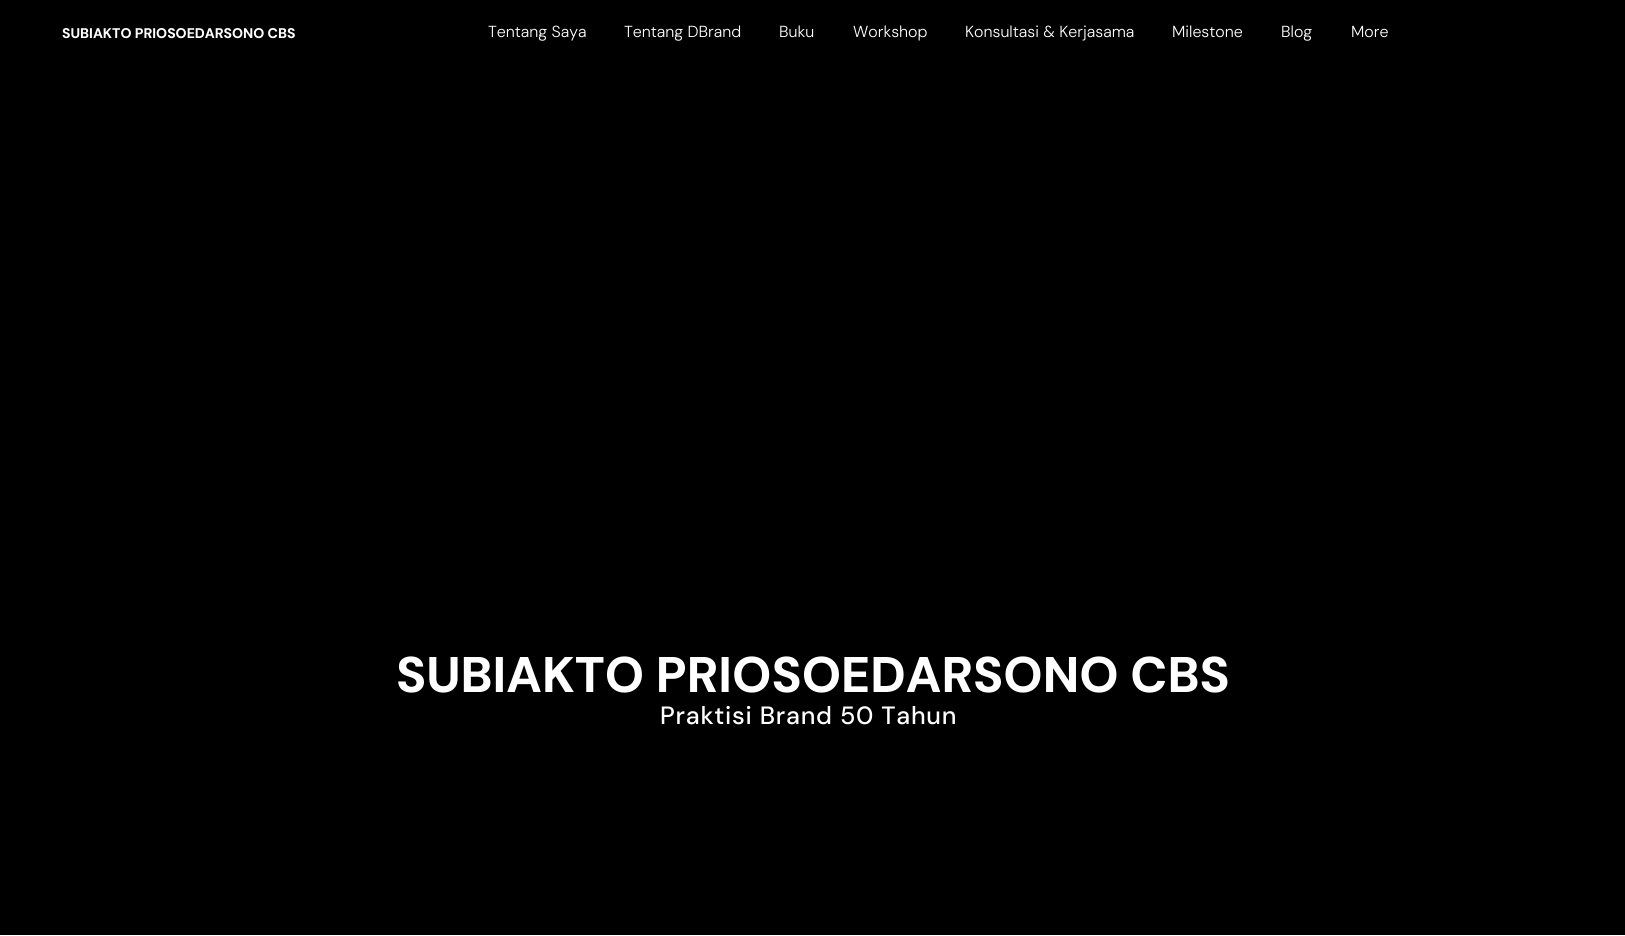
import math
import cairo



def draw_spaced(context, x, y, s, letter, word):
    context.move_to(x, y)
    for ch in s:
        context.show_text(ch)
        context.rel_move_to(letter + word * (ch == ' '), 0)


def draw(context):
    context.set_source_rgb(0, 0, 0)
    context.paint()
    context.set_source_rgb(1, 1, 1)
    context.rectangle(0, 935, 1625, 1)
    context.fill()
    context.select_font_face("DM Sans ExtraBold")
    context.set_font_size(14)
    context.move_to(62, 38)
    context.show_text("SUBIAKTO PRIOSOEDARSONO CBS")
    context.select_font_face("DM Sans Light")
    context.set_font_size(16)
    context.move_to(488, 37)
    context.show_text("Tentang Saya")
    context.move_to(624, 37)
    context.show_text("Tentang DBrand")
    context.move_to(779, 37)
    context.show_text("Buku")
    context.move_to(853, 37)
    context.show_text("Workshop")
    context.move_to(965, 37)
    context.show_text("Konsultasi & Kerjasama")
    context.move_to(1172, 37)
    context.show_text("Milestone")
    context.move_to(1281, 37)
    context.show_text("Blog")
    context.move_to(1351, 37)
    context.show_text("More")
    context.select_font_face("DM Sans ExtraBold")
    context.set_font_size(50)
    context.move_to(396, 692)
    context.show_text("SUBIAKTO PRIOSOEDARSONO CBS")
    context.select_font_face("DM Sans Medium")
    context.set_font_size(25)
    draw_spaced(context, 660, 724, "Praktisi Brand 50 Tahun", 0.75, 0)


surface = cairo.ImageSurface(cairo.Format.RGB24, 1625, 936)
context = cairo.Context(surface)
options = cairo.FontOptions()
options.set_hint_metrics(cairo.HintMetrics.OFF)
options.set_hint_style(cairo.HintStyle.NONE)
context.set_font_options(options)
context.set_miter_limit(4)
draw(context)
surface.write_to_png("out.png")
